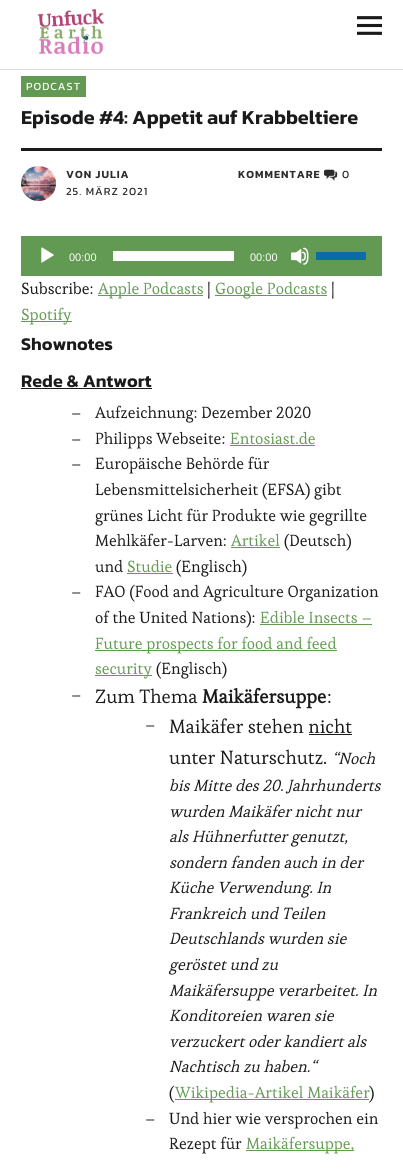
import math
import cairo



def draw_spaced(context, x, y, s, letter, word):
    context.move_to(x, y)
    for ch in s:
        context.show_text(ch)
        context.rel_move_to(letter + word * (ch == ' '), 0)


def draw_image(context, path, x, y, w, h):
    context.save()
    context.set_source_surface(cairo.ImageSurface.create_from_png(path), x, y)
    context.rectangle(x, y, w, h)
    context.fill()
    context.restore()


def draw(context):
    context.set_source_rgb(1, 1, 1)
    context.paint()
    context.set_source_rgb(221 / 255, 221 / 255, 221 / 255)
    context.rectangle(0, 69, 403, 1)
    context.fill()
    draw_image(context, "images/1.png", 37, 9, 68, 45)
    draw_image(context, "images/2.png", 357, 16, 25, 19)
    context.set_source_rgb(99 / 255, 154 / 255, 83 / 255)
    context.rectangle(21, 76, 65, 21)
    context.fill()
    context.set_source_rgb(26 / 255, 26 / 255, 26 / 255)
    context.rectangle(21, 148, 361, 3)
    context.fill()
    draw_image(context, "images/3.png", 21, 166, 35, 35)
    draw_image(context, "images/4.png", 324, 169, 14, 12)
    context.set_source_rgb(99 / 255, 154 / 255, 83 / 255)
    context.rectangle(21, 236, 361, 40)
    context.fill()
    draw_image(context, "images/5.png", 41, 247, 13, 16)
    context.set_source_rgb(1, 1, 1)
    context.rectangle(113, 251, 121, 10)
    context.fill()
    draw_image(context, "images/6.png", 291, 247, 18, 18)
    context.set_source_rgb(12 / 255, 108 / 255, 166 / 255)
    context.rectangle(316, 252, 50, 8)
    context.fill()
    context.set_source_rgb(99 / 255, 154 / 255, 83 / 255)
    context.rectangle(98, 295, 105, 1)
    context.fill()
    context.rectangle(215, 295, 112, 1)
    context.fill()
    context.rectangle(21, 321, 51, 1)
    context.fill()
    context.set_source_rgb(26 / 255, 26 / 255, 26 / 255)
    context.rectangle(21, 388, 131, 1)
    context.fill()
    context.set_source_rgb(99 / 255, 154 / 255, 83 / 255)
    context.rectangle(230, 445, 85, 1)
    context.fill()
    context.rectangle(231, 547, 49, 1)
    context.fill()
    context.rectangle(127, 573, 46, 1)
    context.fill()
    context.rectangle(260, 624, 112, 1)
    context.fill()
    context.rectangle(95, 650, 242, 1)
    context.fill()
    context.rectangle(95, 675, 57, 1)
    context.fill()
    context.set_source_rgb(26 / 255, 26 / 255, 26 / 255)
    context.rectangle(309, 734, 43, 1)
    context.fill()
    context.set_source_rgb(99 / 255, 154 / 255, 83 / 255)
    context.rectangle(175, 1099, 194, 1)
    context.fill()
    context.rectangle(246, 1150, 108, 1)
    context.fill()
    context.select_font_face("Kanit")
    context.set_font_size(11)
    context.set_source_rgb(1, 1, 1)
    draw_spaced(context, 26, 90, "PODCAST", 1, 0)
    context.select_font_face("Kanit SemiBold")
    context.set_font_size(20)
    context.set_source_rgb(26 / 255, 26 / 255, 26 / 255)
    context.move_to(21, 124)
    context.show_text("Episode #4: Appetit auf Krabbeltiere")
    context.set_font_size(11)
    context.set_source_rgb(43 / 255, 43 / 255, 43 / 255)
    draw_spaced(context, 66, 178, "VON JULIA", 1, 0)
    context.select_font_face("Kanit")
    draw_spaced(context, 66, 195, "25. MÄRZ 2021", 1, 0)
    context.select_font_face("Kanit SemiBold")
    draw_spaced(context, 238, 178, "KOMMENTARE", 1, 0)
    context.select_font_face("Kanit")
    draw_spaced(context, 342, 178, "0", 1, 0)
    context.select_font_face("Liberation Sans")
    context.set_source_rgb(1, 1, 1)
    context.move_to(69, 261)
    context.show_text("00:00")
    context.move_to(250, 261)
    context.show_text("00:00")
    context.select_font_face("Esteban")
    context.set_font_size(16)
    context.set_source_rgb(26 / 255, 26 / 255, 26 / 255)
    context.move_to(21, 294)
    context.show_text("Subscribe:")
    context.set_source_rgb(99 / 255, 154 / 255, 83 / 255)
    context.move_to(98, 294)
    context.show_text("Apple Podcasts")
    context.set_source_rgb(26 / 255, 26 / 255, 26 / 255)
    context.move_to(207, 294)
    context.show_text("|")
    context.set_source_rgb(99 / 255, 154 / 255, 83 / 255)
    context.move_to(215, 294)
    context.show_text("Google Podcasts")
    context.set_source_rgb(26 / 255, 26 / 255, 26 / 255)
    context.move_to(331, 294)
    context.show_text("|")
    context.set_source_rgb(99 / 255, 154 / 255, 83 / 255)
    context.move_to(21, 320)
    context.show_text("Spotify")
    context.select_font_face("Kanit SemiBold")
    context.set_font_size(18)
    context.set_source_rgb(26 / 255, 26 / 255, 26 / 255)
    context.move_to(21, 350)
    context.show_text("Shownotes")
    context.move_to(21, 387)
    context.show_text("Rede & Antwort")
    context.select_font_face("Esteban")
    context.set_font_size(16)
    context.move_to(71, 418)
    context.show_text("–")
    context.move_to(95, 418)
    context.show_text("Aufzeichnung: Dezember 2020")
    context.move_to(71, 444)
    context.show_text("–")
    context.move_to(95, 444)
    context.show_text("Philipps Webseite:")
    context.set_source_rgb(99 / 255, 154 / 255, 83 / 255)
    context.move_to(230, 444)
    context.show_text("Entosiast.de")
    context.set_source_rgb(26 / 255, 26 / 255, 26 / 255)
    context.move_to(71, 469)
    context.show_text("–")
    context.move_to(95, 469)
    context.show_text("Europäische Behörde für")
    context.move_to(95, 495)
    context.show_text("Lebensmittelsicherheit (EFSA) gibt")
    context.move_to(95, 521)
    context.show_text("grünes Licht für Produkte wie gegrillte")
    context.move_to(95, 546)
    context.show_text("Mehlkäfer-Larven:")
    context.set_source_rgb(99 / 255, 154 / 255, 83 / 255)
    context.move_to(231, 546)
    context.show_text("Artikel")
    context.set_source_rgb(26 / 255, 26 / 255, 26 / 255)
    context.move_to(284, 546)
    context.show_text("(Deutsch)")
    context.move_to(95, 572)
    context.show_text("und")
    context.set_source_rgb(99 / 255, 154 / 255, 83 / 255)
    context.move_to(127, 572)
    context.show_text("Studie")
    context.set_source_rgb(26 / 255, 26 / 255, 26 / 255)
    context.move_to(176, 572)
    context.show_text("(Englisch)")
    context.move_to(71, 597)
    context.show_text("–")
    context.move_to(95, 597)
    context.show_text("FAO (Food and Agriculture Organization")
    context.move_to(95, 623)
    context.show_text("of the United Nations):")
    context.set_source_rgb(99 / 255, 154 / 255, 83 / 255)
    context.move_to(260, 623)
    context.show_text("Edible Insects –")
    context.move_to(95, 649)
    context.show_text("Future prospects for food and feed")
    context.move_to(95, 674)
    context.show_text("security")
    context.set_source_rgb(26 / 255, 26 / 255, 26 / 255)
    context.move_to(156, 674)
    context.show_text("(Englisch)")
    context.move_to(71, 700)
    context.show_text("–")
    context.set_font_size(19)
    context.move_to(95, 703)
    context.show_text("Zum Thema")
    context.select_font_face("Esteban", cairo.FontSlant.NORMAL, cairo.FontWeight.BOLD)
    context.move_to(202, 703)
    context.show_text("Maikäfersuppe")
    context.select_font_face("Esteban")
    context.move_to(327, 703)
    context.show_text(":")
    context.set_font_size(16)
    context.move_to(145, 730)
    context.show_text("–")
    context.set_font_size(19)
    context.move_to(169, 733)
    context.show_text("Maikäfer stehen nicht")
    context.move_to(169, 764)
    context.show_text("unter Naturschutz.")
    context.select_font_face("Esteban", cairo.FontSlant.ITALIC)
    context.set_font_size(16)
    context.move_to(332, 764)
    context.show_text("“Noch")
    context.move_to(169, 791)
    context.show_text("bis Mitte des 20. Jahrhunderts")
    context.move_to(169, 817)
    context.show_text("wurden Maikäfer nicht nur")
    context.move_to(169, 842)
    context.show_text("als Hühnerfutter genutzt,")
    context.move_to(169, 868)
    context.show_text("sondern fanden auch in der")
    context.move_to(169, 893)
    context.show_text("Küche Verwendung. In")
    context.move_to(169, 919)
    context.show_text("Frankreich und Teilen")
    context.move_to(169, 944)
    context.show_text("Deutschlands wurden sie")
    context.move_to(169, 970)
    context.show_text("geröstet und zu")
    context.move_to(169, 996)
    context.show_text("Maikäfersuppe verarbeitet. In")
    context.move_to(169, 1021)
    context.show_text("Konditoreien waren sie")
    context.move_to(169, 1047)
    context.show_text("verzuckert oder kandiert als")
    context.move_to(169, 1072)
    context.show_text("Nachtisch zu haben.“")
    context.select_font_face("Esteban")
    context.move_to(169, 1098)
    context.show_text("(")
    context.set_source_rgb(99 / 255, 154 / 255, 83 / 255)
    context.move_to(175, 1098)
    context.show_text("Wikipedia-Artikel Maikäfer")
    context.set_source_rgb(26 / 255, 26 / 255, 26 / 255)
    context.move_to(369, 1098)
    context.show_text(")")
    context.move_to(145, 1124)
    context.show_text("–")
    context.move_to(169, 1124)
    context.show_text("Und hier wie versprochen ein")
    context.move_to(169, 1149)
    context.show_text("Rezept für")
    context.set_source_rgb(99 / 255, 154 / 255, 83 / 255)
    context.move_to(246, 1149)
    context.show_text("Maikäfersuppe,")


surface = cairo.ImageSurface(cairo.Format.RGB24, 403, 1171)
context = cairo.Context(surface)
options = cairo.FontOptions()
options.set_hint_metrics(cairo.HintMetrics.OFF)
options.set_hint_style(cairo.HintStyle.NONE)
context.set_font_options(options)
context.set_miter_limit(4)
draw(context)
surface.write_to_png("out.png")
